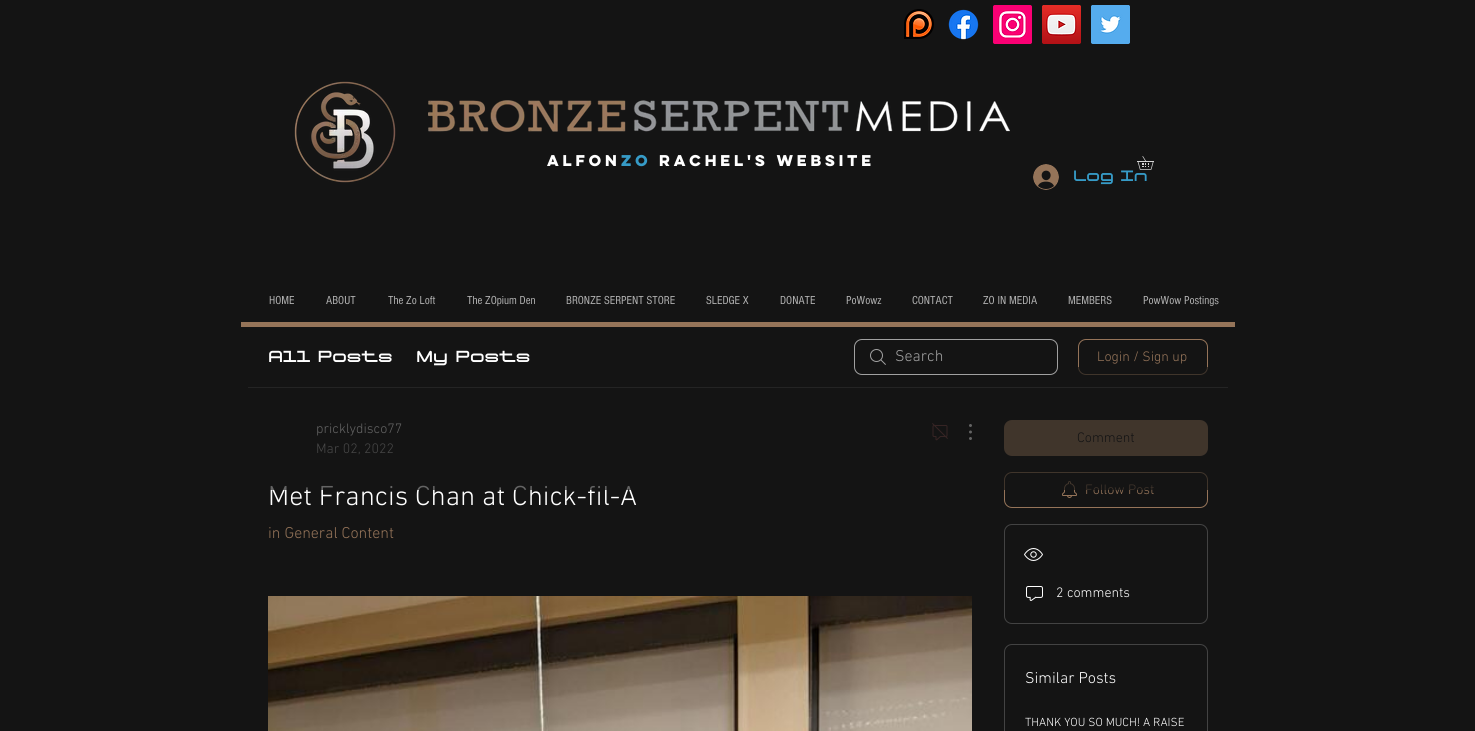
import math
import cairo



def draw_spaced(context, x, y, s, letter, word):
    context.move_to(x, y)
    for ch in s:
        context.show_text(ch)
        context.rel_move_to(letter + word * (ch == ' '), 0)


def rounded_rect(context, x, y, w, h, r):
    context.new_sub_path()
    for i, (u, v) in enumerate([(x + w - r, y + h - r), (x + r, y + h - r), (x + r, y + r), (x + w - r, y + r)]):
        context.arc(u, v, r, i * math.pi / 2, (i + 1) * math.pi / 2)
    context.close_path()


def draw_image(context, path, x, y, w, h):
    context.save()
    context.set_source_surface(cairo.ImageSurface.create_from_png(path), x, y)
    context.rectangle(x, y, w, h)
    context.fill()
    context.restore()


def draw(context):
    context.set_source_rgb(20 / 255, 20 / 255, 20 / 255)
    context.paint()
    draw_image(context, "images/1.png", 904, 9, 30, 30)
    draw_image(context, "images/2.png", 948, 9, 31, 31)
    draw_image(context, "images/3.png", 993, 5, 39, 39)
    draw_image(context, "images/4.png", 1042, 5, 39, 39)
    draw_image(context, "images/5.png", 1091, 5, 39, 39)
    draw_image(context, "images/6.png", 294, 81, 102, 102)
    draw_image(context, "images/7.png", 428, 100, 582, 32)
    draw_image(context, "images/8.png", 1137, 156, 17, 14)
    draw_image(context, "images/9.png", 1033, 164, 26, 26)
    context.set_source_rgb(149 / 255, 116 / 255, 89 / 255)
    context.rectangle(241, 322, 994, 5)
    context.fill()
    context.set_source_rgb(67 / 255, 67 / 255, 67 / 255)
    context.rectangle(248, 387, 980, 1)
    context.fill()
    draw_image(context, "images/10.png", 870, 349, 16, 16)
    rounded_rect(context, 1078.5, 339.5, 129, 35, 7.5)
    context.set_source_rgb(149 / 255, 116 / 255, 89 / 255)
    context.set_line_width(1)
    context.stroke()
    draw_image(context, "images/11.png", 932, 423, 16, 18)
    draw_image(context, "images/12.png", 969, 424, 3, 16)
    draw_image(context, "images/13.png", 268, 596, 704, 135)
    rounded_rect(context, 1004, 420, 204, 36, 8)
    context.fill()
    rounded_rect(context, 1004.5, 472.5, 203, 35, 7.5)
    context.stroke()
    draw_image(context, "images/14.png", 1062, 481, 15, 17)
    rounded_rect(context, 1004.5, 524.5, 203, 99, 7.5)
    context.set_source_rgb(67 / 255, 67 / 255, 67 / 255)
    context.stroke()
    draw_image(context, "images/15.png", 1024, 548, 19, 13)
    draw_image(context, "images/16.png", 1026, 586, 17, 15)
    rounded_rect(context, 1004.5, 644.5, 203, 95, 7.5)
    context.stroke()
    context.select_font_face("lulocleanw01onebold", cairo.FontSlant.NORMAL, cairo.FontWeight.BOLD)
    context.set_font_size(14)
    context.set_source_rgb(1, 1, 1)
    draw_spaced(context, 547, 166, "Alfon", 0.75, 0)
    context.set_source_rgb(54 / 255, 155 / 255, 199 / 255)
    draw_spaced(context, 621, 166, "ZO", 0.75, 0)
    context.set_source_rgb(1, 1, 1)
    draw_spaced(context, 659, 166, "RACHEL's website", 0.75, 0)
    context.select_font_face("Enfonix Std")
    context.set_font_size(15)
    context.set_source_rgb(54 / 255, 155 / 255, 199 / 255)
    context.move_to(1073, 181)
    context.show_text("Log In")
    context.select_font_face("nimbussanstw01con")
    context.set_font_size(12)
    context.set_source_rgb(177 / 255, 177 / 255, 177 / 255)
    context.move_to(269, 304)
    context.show_text("HOME")
    context.move_to(326, 304)
    context.show_text("ABOUT")
    context.move_to(388, 304)
    context.show_text("The Zo Loft")
    context.move_to(467, 304)
    context.show_text("The ZOpium Den")
    context.move_to(566, 304)
    context.show_text("BRONZE SERPENT STORE")
    context.move_to(706, 304)
    context.show_text("SLEDGE X")
    context.move_to(780, 304)
    context.show_text("DONATE")
    context.move_to(846, 304)
    context.show_text("PoWowz")
    context.move_to(912, 304)
    context.show_text("CONTACT")
    context.move_to(983, 304)
    context.show_text("ZO IN MEDIA")
    context.move_to(1068, 304)
    context.show_text("MEMBERS")
    context.move_to(1143, 304)
    context.show_text("PowWow Postings")
    context.select_font_face("Enfonix Std")
    context.set_font_size(16)
    context.set_source_rgb(1, 1, 1)
    context.move_to(268, 362)
    context.show_text("All Posts")
    context.move_to(416, 362)
    context.show_text("My Posts")
    context.select_font_face("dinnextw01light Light")
    context.set_font_size(14)
    context.set_source_rgb(149 / 255, 116 / 255, 89 / 255)
    context.move_to(1097, 361)
    context.show_text("Login / Sign up")
    context.set_source_rgb(1, 1, 1)
    context.move_to(316, 433)
    context.show_text("pricklydisco77")
    context.set_source_rgb(170 / 255, 170 / 255, 170 / 255)
    context.move_to(316, 453)
    context.show_text("Mar 02, 2022")
    context.set_font_size(28)
    context.set_source_rgb(1, 1, 1)
    context.move_to(268, 505)
    context.show_text("Met Francis Chan at Chick-fil-A")
    context.set_font_size(16)
    context.set_source_rgb(149 / 255, 116 / 255, 89 / 255)
    context.move_to(268, 538)
    context.show_text("in General Content")
    context.set_font_size(14)
    context.set_source_rgb(20 / 255, 20 / 255, 20 / 255)
    context.move_to(1077, 442)
    context.show_text("Comment")
    context.set_source_rgb(149 / 255, 116 / 255, 89 / 255)
    context.move_to(1085, 494)
    context.show_text("Follow Post")
    context.set_source_rgb(1, 1, 1)
    context.move_to(1056, 597)
    context.show_text("2 comments")
    context.set_font_size(16)
    context.move_to(1025, 683)
    context.show_text("Similar Posts")
    context.set_font_size(12)
    context.move_to(1025, 726)
    context.show_text("THANK YOU SO MUCH! A RAISE")
    context.set_source_rgba(20 / 255, 20 / 255, 20 / 255, 0.66)
    context.rectangle(248, 367, 980, 123)
    context.fill()
    rounded_rect(context, 854.5, 339.5, 203, 35, 7.5)
    context.set_source_rgb(161 / 255, 161 / 255, 161 / 255)
    context.stroke()
    context.set_font_size(16)
    context.move_to(895, 361)
    context.show_text("Search")


surface = cairo.ImageSurface(cairo.Format.RGB24, 1475, 731)
context = cairo.Context(surface)
options = cairo.FontOptions()
options.set_hint_metrics(cairo.HintMetrics.OFF)
options.set_hint_style(cairo.HintStyle.NONE)
context.set_font_options(options)
context.set_miter_limit(4)
draw(context)
surface.write_to_png("out.png")
